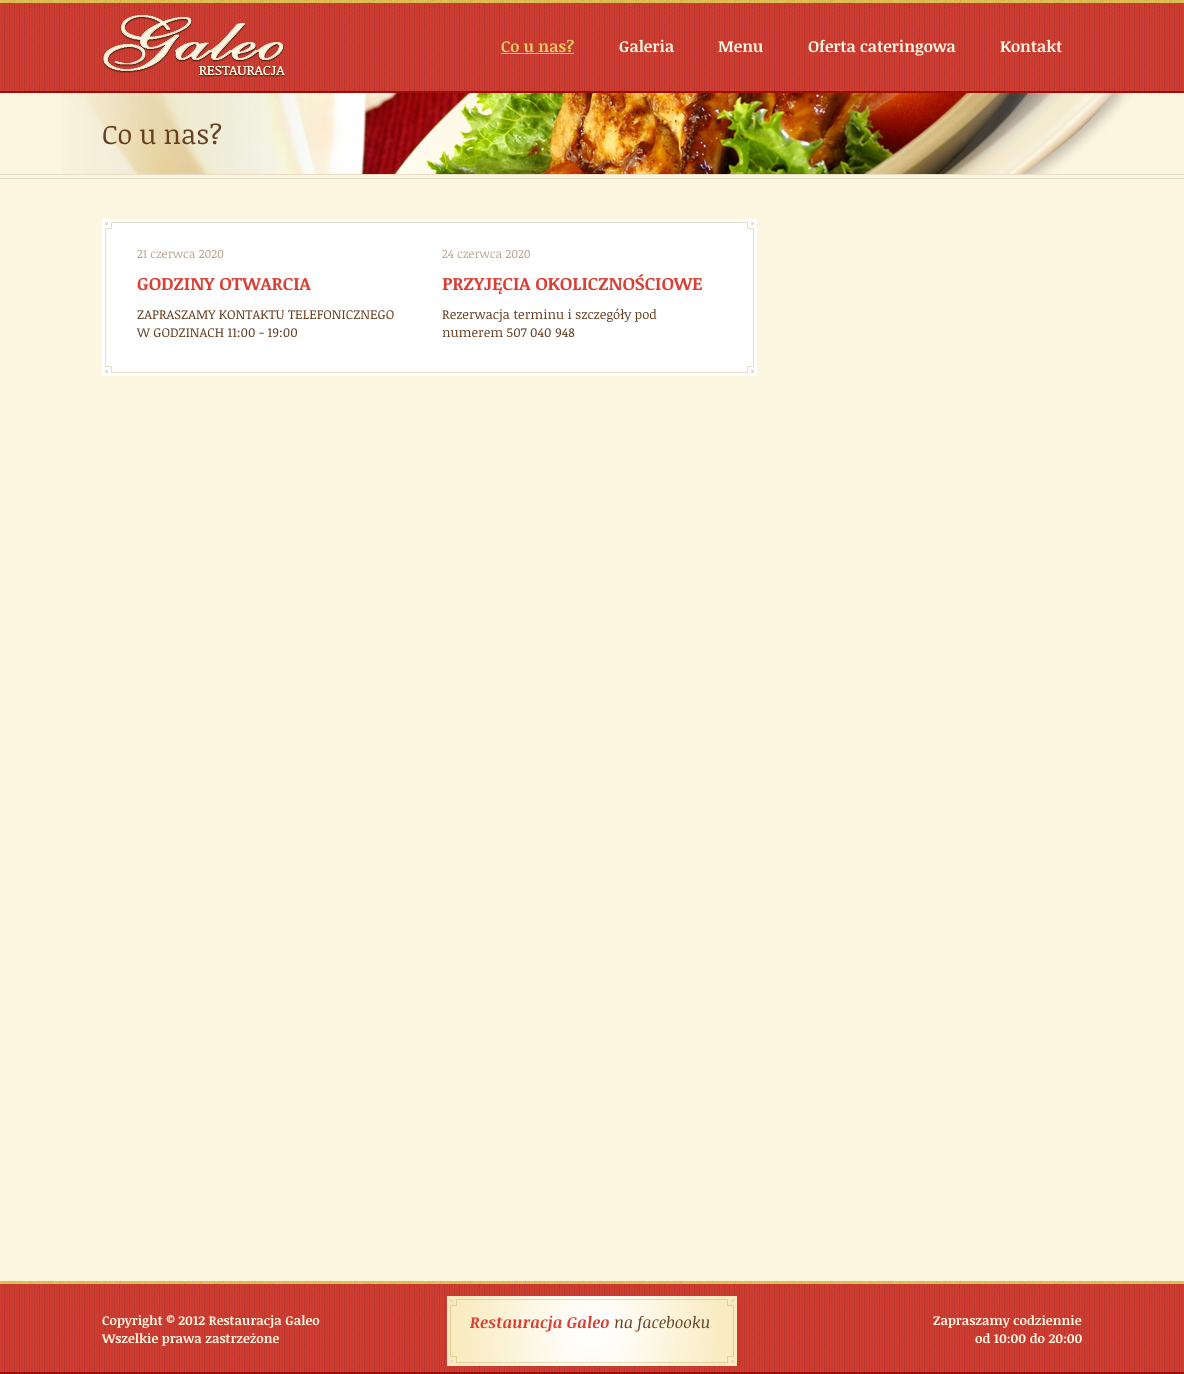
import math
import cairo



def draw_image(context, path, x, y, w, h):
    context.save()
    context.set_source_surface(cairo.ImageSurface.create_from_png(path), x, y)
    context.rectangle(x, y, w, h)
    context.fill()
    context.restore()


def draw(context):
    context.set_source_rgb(252 / 255, 245 / 255, 223 / 255)
    context.paint()
    draw_image(context, "images/1.png", 0, 0, 1184, 93)
    draw_image(context, "images/2.png", 102, 15, 184, 62)
    context.set_source_rgb(234 / 255, 201 / 255, 96 / 255)
    context.rectangle(501, 53, 73, 1)
    context.fill()
    context.set_source_rgb(234 / 255, 221 / 255, 197 / 255)
    context.rectangle(0, 178, 1184, 1)
    context.fill()
    draw_image(context, "images/3.png", 61, 93, 1071, 81)
    context.rectangle(0, 174, 1184, 1)
    context.fill()
    draw_image(context, "images/4.png", 102, 219, 655, 157)
    draw_image(context, "images/1.png", 0, 1281, 1184, 93)
    draw_image(context, "images/5.png", 447, 1296, 290, 70)
    context.select_font_face("Noticia Text", cairo.FontSlant.NORMAL, cairo.FontWeight.BOLD)
    context.set_font_size(16)
    context.set_source_rgb(234 / 255, 201 / 255, 96 / 255)
    context.move_to(501, 52)
    context.show_text("Co u nas?")
    context.set_source_rgb(252 / 255, 245 / 255, 223 / 255)
    context.move_to(619, 52)
    context.show_text("Galeria")
    context.move_to(718, 52)
    context.show_text("Menu")
    context.move_to(808, 52)
    context.show_text("Oferta cateringowa")
    context.move_to(1000, 52)
    context.show_text("Kontakt")
    context.select_font_face("Noticia Text")
    context.set_font_size(27)
    context.set_source_rgb(103 / 255, 63 / 255, 33 / 255)
    context.move_to(102, 144)
    context.show_text("Co u nas?")
    context.set_font_size(12)
    context.set_source_rgb(185 / 255, 166 / 255, 140 / 255)
    context.move_to(137, 258)
    context.show_text("21 czerwca 2020")
    context.select_font_face("Noticia Text", cairo.FontSlant.NORMAL, cairo.FontWeight.BOLD)
    context.set_font_size(18)
    context.set_source_rgb(219 / 255, 63 / 255, 51 / 255)
    context.move_to(137, 290)
    context.show_text("GODZINY OTWARCIA")
    context.select_font_face("Noticia Text")
    context.set_font_size(13)
    context.set_source_rgb(103 / 255, 63 / 255, 33 / 255)
    context.move_to(137, 319)
    context.show_text("ZAPRASZAMY KONTAKTU TELEFONICZNEGO")
    context.move_to(137, 337)
    context.show_text("W GODZINACH 11:00 - 19:00")
    context.set_font_size(12)
    context.set_source_rgb(185 / 255, 166 / 255, 140 / 255)
    context.move_to(442, 258)
    context.show_text("24 czerwca 2020")
    context.select_font_face("Noticia Text", cairo.FontSlant.NORMAL, cairo.FontWeight.BOLD)
    context.set_font_size(18)
    context.set_source_rgb(219 / 255, 63 / 255, 51 / 255)
    context.move_to(442, 290)
    context.show_text("PRZYJĘCIA OKOLICZNOŚCIOWE")
    context.select_font_face("Noticia Text")
    context.set_font_size(13)
    context.set_source_rgb(103 / 255, 63 / 255, 33 / 255)
    context.move_to(442, 319)
    context.show_text("Rezerwacja terminu i szczegóły pod")
    context.move_to(442, 337)
    context.show_text("numerem 507 040 948")
    context.select_font_face("Noticia Text", cairo.FontSlant.NORMAL, cairo.FontWeight.BOLD)
    context.set_source_rgb(252 / 255, 245 / 255, 223 / 255)
    context.move_to(102, 1325)
    context.show_text("Copyright © 2012 Restauracja Galeo")
    context.move_to(102, 1343)
    context.show_text("Wszelkie prawa zastrzeżone")
    context.select_font_face("Noticia Text", cairo.FontSlant.ITALIC, cairo.FontWeight.BOLD)
    context.set_font_size(16)
    context.set_source_rgb(219 / 255, 63 / 255, 51 / 255)
    context.move_to(470, 1328)
    context.show_text("Restauracja Galeo")
    context.select_font_face("Noticia Text", cairo.FontSlant.ITALIC)
    context.set_source_rgb(103 / 255, 63 / 255, 33 / 255)
    context.move_to(614, 1328)
    context.show_text("na facebooku")
    context.select_font_face("Noticia Text", cairo.FontSlant.NORMAL, cairo.FontWeight.BOLD)
    context.set_font_size(13)
    context.set_source_rgb(252 / 255, 245 / 255, 223 / 255)
    context.move_to(933, 1325)
    context.show_text("Zapraszamy codziennie")
    context.move_to(975, 1343)
    context.show_text("od 10:00 do 20:00")


surface = cairo.ImageSurface(cairo.Format.RGB24, 1184, 1374)
context = cairo.Context(surface)
options = cairo.FontOptions()
options.set_hint_metrics(cairo.HintMetrics.OFF)
options.set_hint_style(cairo.HintStyle.NONE)
context.set_font_options(options)
context.set_miter_limit(4)
draw(context)
surface.write_to_png("out.png")
